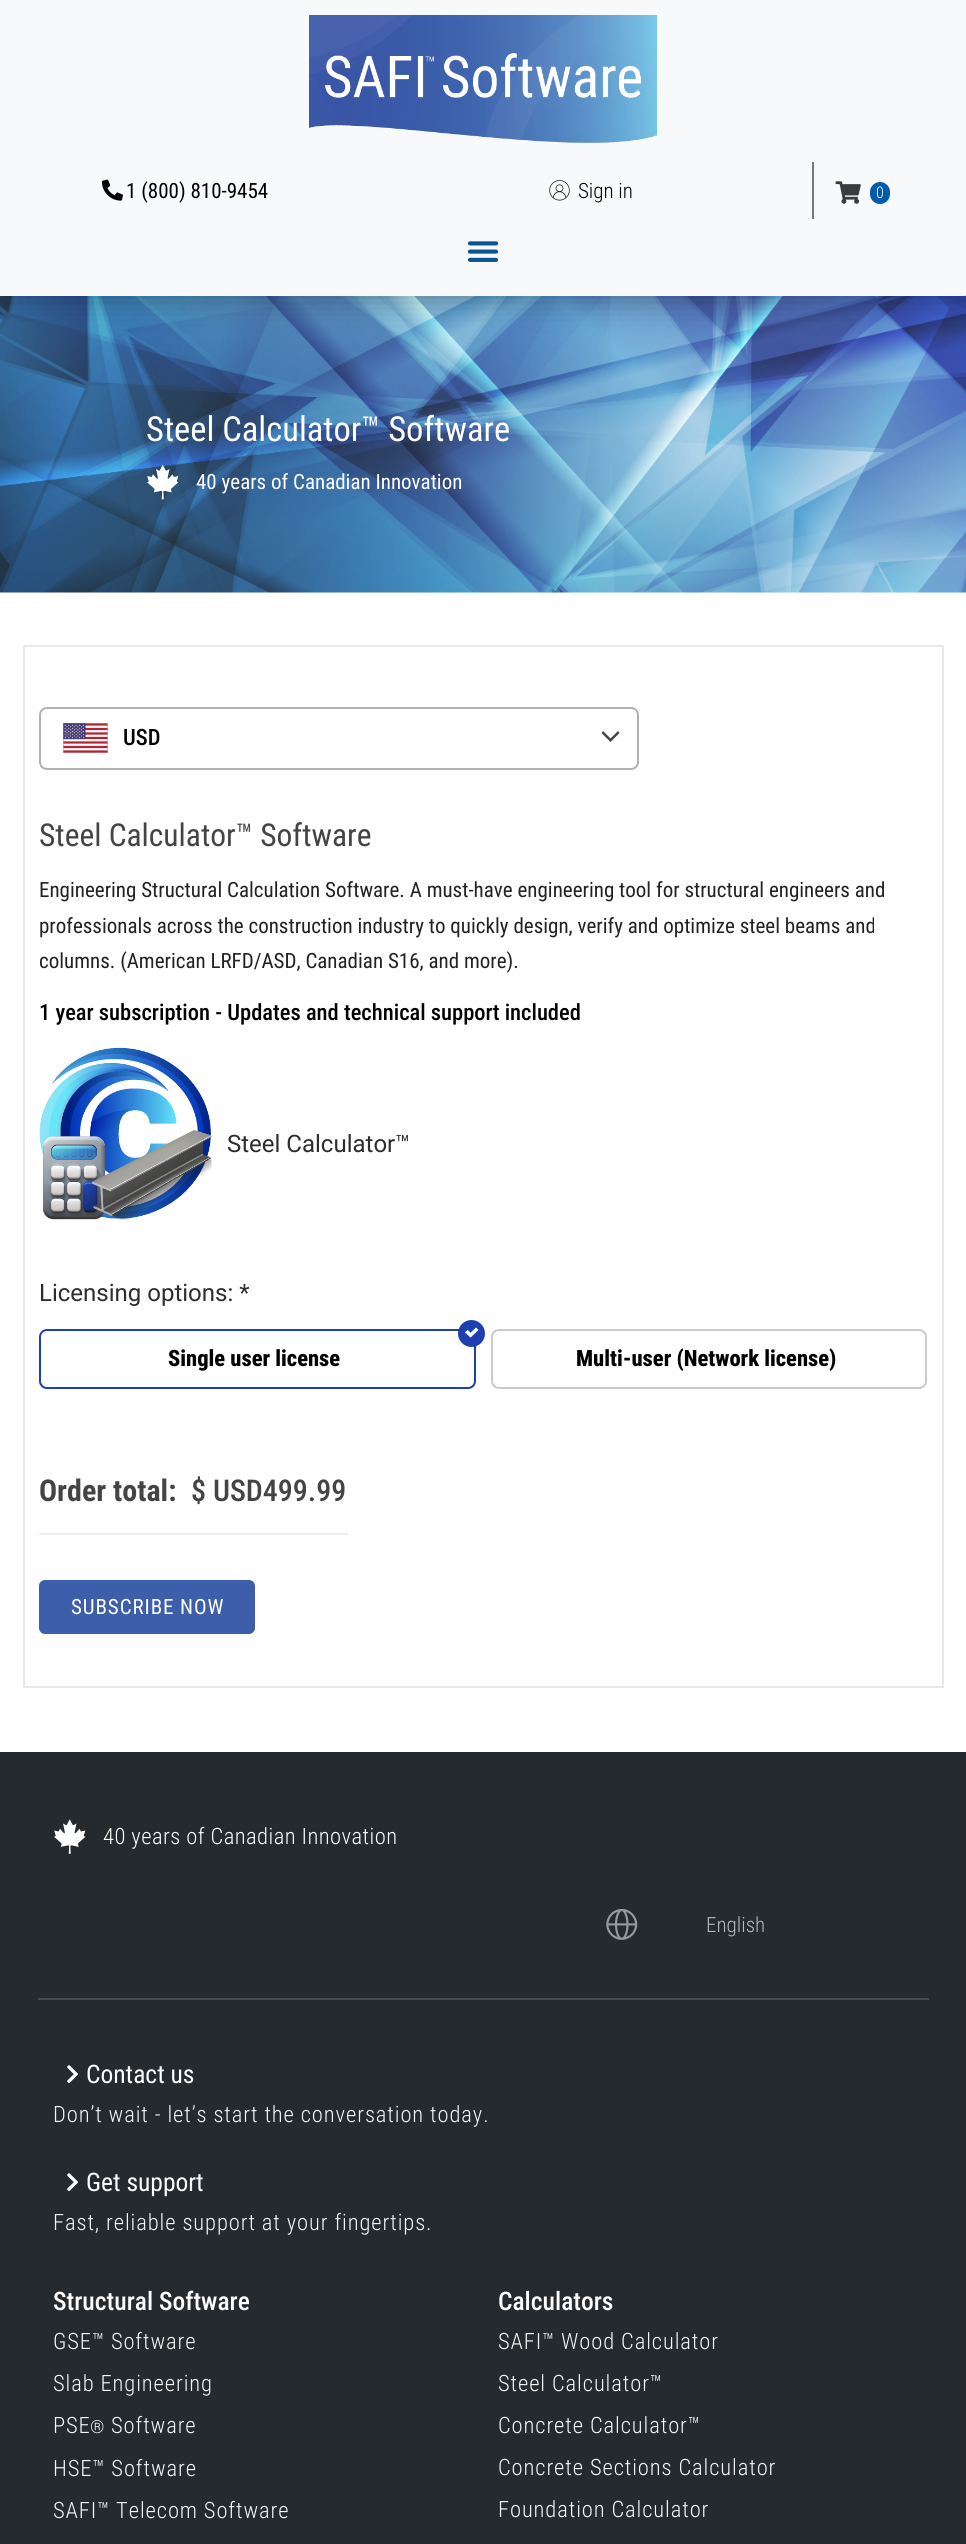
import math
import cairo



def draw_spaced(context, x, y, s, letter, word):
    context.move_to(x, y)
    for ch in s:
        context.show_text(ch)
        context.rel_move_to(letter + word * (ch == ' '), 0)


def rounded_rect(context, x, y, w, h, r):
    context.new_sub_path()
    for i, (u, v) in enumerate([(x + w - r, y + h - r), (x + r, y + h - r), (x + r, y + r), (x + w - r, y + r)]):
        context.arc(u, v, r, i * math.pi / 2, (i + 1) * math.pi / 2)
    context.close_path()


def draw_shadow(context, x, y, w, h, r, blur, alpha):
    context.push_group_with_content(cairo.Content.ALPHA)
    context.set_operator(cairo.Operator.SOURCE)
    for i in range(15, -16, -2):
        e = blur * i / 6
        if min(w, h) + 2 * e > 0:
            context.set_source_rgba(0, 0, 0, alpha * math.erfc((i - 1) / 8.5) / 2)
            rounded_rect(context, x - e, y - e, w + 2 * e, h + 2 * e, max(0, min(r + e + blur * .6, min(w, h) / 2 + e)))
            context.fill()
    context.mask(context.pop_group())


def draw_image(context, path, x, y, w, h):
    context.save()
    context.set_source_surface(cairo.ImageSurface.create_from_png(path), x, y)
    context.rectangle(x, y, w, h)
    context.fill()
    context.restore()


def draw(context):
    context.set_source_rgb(1, 1, 1)
    context.paint()
    context.set_source_rgb(251 / 255, 251 / 255, 251 / 255)
    context.rectangle(0, 592, 966, 1)
    context.fill()
    draw_image(context, "images/6.png", 0, 295, 966, 298)
    context.set_source_rgb(0, 0, 0)
    draw_shadow(context, 0, 0, 966, 296, 1.5, 17, 0.37)
    context.set_source_rgb(248 / 255, 249 / 255, 250 / 255)
    context.new_path()
    context.move_to(0, 0)
    context.line_to(966, 0)
    context.line_to(966, 294.5)
    context.curve_to(966, 295.5, 965.5, 296, 964.5, 296)
    context.line_to(0, 296)
    context.close_path()
    context.fill()
    draw_image(context, "images/1.png", 309, 15, 348, 128)
    draw_image(context, "images/2.png", 102, 179, 21, 22)
    context.set_source_rgb(119 / 255, 119 / 255, 119 / 255)
    context.rectangle(812, 162, 2, 57)
    context.fill()
    draw_image(context, "images/3.png", 549, 180, 21, 21)
    draw_image(context, "images/4.png", 835, 181, 26, 23)
    context.set_source_rgb(0, 91 / 255, 170 / 255)
    rounded_rect(context, 870, 182, 20, 22, 10)
    context.fill()
    draw_image(context, "images/5.png", 467, 241, 32, 21)
    draw_image(context, "images/7.png", 147, 465, 32, 35)
    context.rectangle(24, 646, 919, 1041)
    context.set_source_rgb(232 / 255, 232 / 255, 232 / 255)
    context.stroke()
    rounded_rect(context, 40, 708, 598, 61, 7)
    context.set_source_rgb(178 / 255, 178 / 255, 178 / 255)
    context.stroke()
    draw_image(context, "images/8.png", 63, 723, 45, 30)
    context.set_source_rgb(67 / 255, 67 / 255, 67 / 255)
    context.new_path()
    context.move_to(619.5, 733)
    context.line_to(618, 731)
    context.line_to(610.5, 738.5)
    context.line_to(603, 731)
    context.line_to(601.5, 733)
    context.line_to(610.5, 742)
    context.close_path()
    context.fill()
    draw_image(context, "images/9.png", 39, 1047, 173, 173)
    rounded_rect(context, 40, 1330, 435, 58, 7)
    context.set_source_rgb(30 / 255, 64 / 255, 175 / 255)
    context.stroke()
    context.arc(471.5, 1333.5, 13.5, 0, 2 * math.pi)
    context.fill()
    draw_image(context, "images/10.png", 465, 1327, 14, 11)
    rounded_rect(context, 492, 1330, 434, 58, 7)
    context.set_source_rgb(204 / 255, 203 / 255, 203 / 255)
    context.stroke()
    context.set_source_rgb(238 / 255, 238 / 255, 238 / 255)
    context.rectangle(39, 1533, 309, 2)
    context.fill()
    context.set_source_rgb(61 / 255, 95 / 255, 171 / 255)
    rounded_rect(context, 40, 1581, 214, 52, 5)
    context.fill_preserve()
    context.stroke()
    context.set_source_rgb(37 / 255, 42 / 255, 46 / 255)
    context.rectangle(0, 1752, 966, 792)
    context.fill()
    draw_image(context, "images/11.png", 54, 1819, 32, 35)
    draw_image(context, "images/12.png", 606, 1908, 32, 32)
    context.set_source_rgb(72 / 255, 76 / 255, 79 / 255)
    context.rectangle(38, 1998, 891, 2)
    context.fill()
    draw_image(context, "images/13.png", 67, 2065, 11, 18)
    draw_image(context, "images/13.png", 67, 2173, 11, 18)
    context.select_font_face("Roboto Condensed")
    context.set_font_size(21)
    context.set_source_rgb(0, 0, 0)
    context.move_to(126, 198)
    context.show_text("1 (800) 810-9454")
    context.select_font_face("Roboto Condensed Light")
    context.move_to(578, 198)
    context.show_text("Sign in")
    context.set_font_size(16)
    context.set_source_rgb(1, 1, 1)
    draw_spaced(context, 876, 198, "0", 1, 0)
    context.select_font_face("Roboto Condensed")
    context.set_font_size(34.5)
    context.move_to(146, 441)
    context.show_text("Steel Calculator™ Software")
    context.set_font_size(21)
    context.move_to(196, 489)
    context.show_text("40 years of Canadian Innovation")
    context.select_font_face("Roboto Condensed Medium")
    context.set_font_size(22.5)
    context.set_source_rgb(0, 0, 0)
    context.move_to(123, 745)
    context.show_text("USD")
    context.select_font_face("Roboto Condensed")
    context.set_font_size(31.5)
    context.set_source_rgb(68 / 255, 68 / 255, 68 / 255)
    context.move_to(39, 846)
    context.show_text("Steel Calculator™ Software")
    context.set_font_size(21)
    context.set_source_rgb(34 / 255, 34 / 255, 34 / 255)
    context.move_to(39, 897)
    context.show_text("Engineering Structural Calculation Software. A must-have engineering tool for structural engineers and")
    context.move_to(39, 933)
    context.show_text("professionals across the construction industry to quickly design, verify and optimize steel beams and")
    context.move_to(39, 968)
    context.show_text("columns. (American LRFD/ASD, Canadian S16, and more).")
    context.select_font_face("Roboto Condensed Medium")
    context.set_font_size(22.5)
    context.set_source_rgb(0, 0, 0)
    context.move_to(39, 1020)
    context.show_text("1 year subscription - Updates and technical support included")
    context.select_font_face("Roboto")
    context.set_font_size(24)
    context.set_source_rgb(45 / 255, 45 / 255, 45 / 255)
    context.move_to(227, 1152)
    context.show_text("Steel Calculator™")
    context.move_to(39, 1301)
    context.show_text("Licensing options: *")
    context.select_font_face("Roboto Condensed ExtraBold")
    context.set_font_size(22.5)
    context.set_source_rgb(0, 0, 0)
    context.move_to(168, 1366)
    context.show_text("Single user license")
    context.move_to(576, 1366)
    context.show_text("Multi-user (Network license)")
    context.select_font_face("Roboto Condensed", cairo.FontSlant.NORMAL, cairo.FontWeight.BOLD)
    context.set_font_size(30)
    context.set_source_rgb(68 / 255, 68 / 255, 68 / 255)
    context.move_to(39, 1501)
    context.show_text("Order total:")
    context.select_font_face("Roboto Condensed Medium")
    context.move_to(191, 1501)
    context.show_text("$ USD499.99")
    context.select_font_face("Roboto Condensed")
    context.set_font_size(21)
    context.set_source_rgb(1, 1, 1)
    draw_spaced(context, 71, 1614, "SUBSCRIBE NOW", 0.9, 0)
    context.select_font_face("Roboto Condensed Light")
    context.set_font_size(22.5)
    draw_spaced(context, 103, 1844, "40 years of Canadian Innovation", 0.45, 0)
    context.set_font_size(21)
    context.set_source_rgb(183 / 255, 185 / 255, 186 / 255)
    context.move_to(706, 1932)
    context.show_text("English")
    context.select_font_face("Roboto Condensed")
    context.set_font_size(25.5)
    context.set_source_rgb(1, 1, 1)
    context.move_to(86, 2083)
    context.show_text("Contact us")
    context.select_font_face("Roboto Condensed Light")
    context.set_font_size(22.5)
    context.set_source_rgb(246 / 255, 246 / 255, 246 / 255)
    draw_spaced(context, 53, 2122, "Don’t wait - let’s start the conversation today.", 0.9, 0)
    context.select_font_face("Roboto Condensed")
    context.set_font_size(25.5)
    context.set_source_rgb(1, 1, 1)
    context.move_to(86, 2191)
    context.show_text("Get support")
    context.select_font_face("Roboto Condensed Light")
    context.set_font_size(22.5)
    context.set_source_rgb(246 / 255, 246 / 255, 246 / 255)
    draw_spaced(context, 53, 2230, "Fast, reliable support at your fingertips.", 0.9, 0)
    context.select_font_face("Roboto Condensed Medium")
    context.set_font_size(25.5)
    context.set_source_rgb(1, 1, 1)
    context.move_to(53, 2310)
    context.show_text("Structural Software")
    context.select_font_face("Roboto Condensed Light")
    context.set_font_size(22.5)
    context.set_source_rgb(246 / 255, 246 / 255, 246 / 255)
    draw_spaced(context, 53, 2349, "GSE™ Software", 0.9, 0)
    draw_spaced(context, 53, 2391, "Slab Engineering", 0.9, 0)
    draw_spaced(context, 53, 2433, "PSE", 0.9, 0)
    context.set_font_size(18)
    draw_spaced(context, 90, 2433, "®", 0.9, 0)
    context.set_font_size(22.5)
    draw_spaced(context, 111, 2433, "Software", 0.9, 0)
    draw_spaced(context, 53, 2476, "HSE™ Software", 0.9, 0)
    draw_spaced(context, 53, 2518, "SAFI™ Telecom Software", 0.9, 0)
    context.select_font_face("Roboto Condensed Medium")
    context.set_font_size(25.5)
    context.set_source_rgb(1, 1, 1)
    context.move_to(498, 2310)
    context.show_text("Calculators")
    context.select_font_face("Roboto Condensed Light")
    context.set_font_size(22.5)
    context.set_source_rgb(246 / 255, 246 / 255, 246 / 255)
    draw_spaced(context, 498, 2349, "SAFI™ Wood Calculator", 0.9, 0)
    draw_spaced(context, 498, 2391, "Steel Calculator™", 0.9, 0)
    draw_spaced(context, 498, 2433, "Concrete Calculator™", 0.9, 0)
    draw_spaced(context, 498, 2475, "Concrete Sections Calculator", 0.9, 0)
    draw_spaced(context, 498, 2517, "Foundation Calculator", 0.9, 0)


surface = cairo.ImageSurface(cairo.Format.RGB24, 966, 2544)
context = cairo.Context(surface)
options = cairo.FontOptions()
options.set_hint_metrics(cairo.HintMetrics.OFF)
options.set_hint_style(cairo.HintStyle.NONE)
context.set_font_options(options)
context.set_miter_limit(4)
draw(context)
surface.write_to_png("out.png")
